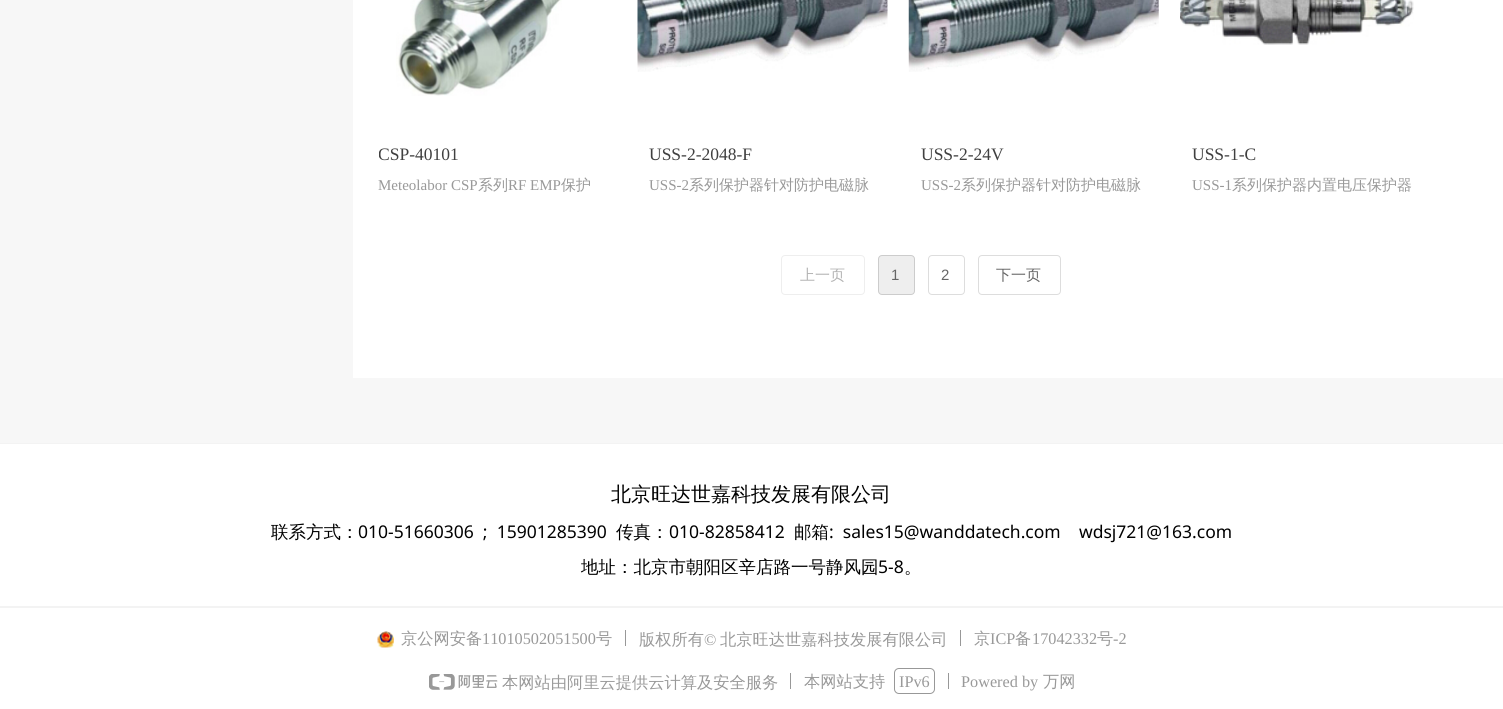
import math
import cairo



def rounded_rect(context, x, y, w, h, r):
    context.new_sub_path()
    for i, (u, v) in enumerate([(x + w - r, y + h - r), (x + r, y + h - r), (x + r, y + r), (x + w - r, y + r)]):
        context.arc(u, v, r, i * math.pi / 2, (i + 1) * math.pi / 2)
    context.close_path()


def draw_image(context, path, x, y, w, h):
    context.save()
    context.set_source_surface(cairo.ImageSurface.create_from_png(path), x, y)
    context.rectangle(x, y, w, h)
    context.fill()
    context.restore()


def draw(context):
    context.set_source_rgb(1, 1, 1)
    context.paint()
    context.set_source_rgb(247 / 255, 247 / 255, 247 / 255)
    context.rectangle(0, 0, 1503, 443)
    context.fill()
    context.set_source_rgb(1, 1, 1)
    context.rectangle(353, 0, 1150, 378)
    context.fill()
    draw_image(context, "images/1.png", 396, 0, 166, 96)
    draw_image(context, "images/2.png", 637, 0, 251, 72)
    draw_image(context, "images/3.png", 908, 0, 251, 72)
    draw_image(context, "images/4.png", 1180, 0, 234, 45)
    rounded_rect(context, 781.5, 255.5, 83, 39, 3.5)
    context.set_source_rgb(238 / 255, 238 / 255, 238 / 255)
    context.set_line_width(1)
    context.stroke()
    rounded_rect(context, 878.5, 255.5, 36, 39, 3.5)
    context.fill_preserve()
    context.set_source_rgb(204 / 255, 204 / 255, 204 / 255)
    context.stroke()
    rounded_rect(context, 928.5, 255.5, 36, 39, 3.5)
    context.set_source_rgb(221 / 255, 221 / 255, 221 / 255)
    context.stroke()
    rounded_rect(context, 978.5, 255.5, 82, 39, 3.5)
    context.stroke()
    context.set_source_rgb(243 / 255, 243 / 255, 243 / 255)
    context.rectangle(0, 443, 1503, 165)
    context.fill()
    context.set_source_rgb(1, 1, 1)
    context.rectangle(0, 444, 1503, 162)
    context.fill()
    draw_image(context, "images/5.png", 377, 631, 17, 17)
    context.set_source_rgb(152 / 255, 152 / 255, 152 / 255)
    context.rectangle(625, 630, 1, 16)
    context.fill()
    context.rectangle(960, 630, 1, 16)
    context.fill()
    draw_image(context, "images/6.png", 429, 674, 69, 16)
    context.rectangle(790, 673, 1, 16)
    context.fill()
    rounded_rect(context, 894.5, 668.5, 40, 25, 4.5)
    context.stroke()
    context.rectangle(948, 673, 1, 16)
    context.fill()
    context.save()
    context.rectangle(379, 138, 225, 35)
    context.clip()
    context.select_font_face("Liberation Serif")
    context.set_font_size(17.5)
    context.set_source_rgb(64 / 255, 64 / 255, 64 / 255)
    context.move_to(378, 160)
    context.show_text("CSP-40101")
    context.restore()
    context.select_font_face("Liberation Serif")
    context.set_font_size(15)
    context.set_source_rgb(153 / 255, 153 / 255, 153 / 255)
    context.move_to(378, 190)
    context.show_text("Meteolabor CSP")
    context.select_font_face("WenQuanYi Zen Hei Medium")
    context.move_to(478, 190)
    context.show_text("系列")
    context.select_font_face("Liberation Serif")
    context.move_to(508, 190)
    context.show_text("RF EMP")
    context.select_font_face("WenQuanYi Zen Hei Medium")
    context.move_to(561, 190)
    context.show_text("保护")
    context.select_font_face("Liberation Serif")
    context.set_font_size(17.5)
    context.set_source_rgb(64 / 255, 64 / 255, 64 / 255)
    context.move_to(649, 160)
    context.show_text("USS-2-2048-F")
    context.set_font_size(15)
    context.set_source_rgb(153 / 255, 153 / 255, 153 / 255)
    context.move_to(649, 190)
    context.show_text("USS-2")
    context.select_font_face("WenQuanYi Zen Hei Medium")
    context.move_to(689, 190)
    context.show_text("系列保护器针对防护电磁脉")
    context.select_font_face("Liberation Serif")
    context.set_font_size(17.5)
    context.set_source_rgb(64 / 255, 64 / 255, 64 / 255)
    context.move_to(921, 160)
    context.show_text("USS-2-24V")
    context.set_font_size(15)
    context.set_source_rgb(153 / 255, 153 / 255, 153 / 255)
    context.move_to(921, 190)
    context.show_text("USS-2")
    context.select_font_face("WenQuanYi Zen Hei Medium")
    context.move_to(961, 190)
    context.show_text("系列保护器针对防护电磁脉")
    context.select_font_face("Liberation Serif")
    context.set_font_size(17.5)
    context.set_source_rgb(64 / 255, 64 / 255, 64 / 255)
    context.move_to(1192, 160)
    context.show_text("USS-1-C")
    context.set_font_size(15)
    context.set_source_rgb(153 / 255, 153 / 255, 153 / 255)
    context.move_to(1192, 190)
    context.show_text("USS-1")
    context.select_font_face("WenQuanYi Zen Hei Medium")
    context.move_to(1232, 190)
    context.show_text("系列保护器内置电压保护器")
    context.set_source_rgb(179 / 255, 179 / 255, 179 / 255)
    context.move_to(800, 280)
    context.show_text("上一页")
    context.select_font_face("Liberation Sans")
    context.set_source_rgb(102 / 255, 102 / 255, 102 / 255)
    context.move_to(891, 280)
    context.show_text("1")
    context.move_to(941, 280)
    context.show_text("2")
    context.select_font_face("WenQuanYi Zen Hei Medium")
    context.move_to(996, 280)
    context.show_text("下一页")
    context.set_font_size(20)
    context.set_source_rgb(0, 0, 0)
    context.move_to(611, 501)
    context.show_text("北京旺达世嘉科技发展有限公司")
    context.set_font_size(17.5)
    context.move_to(271, 538)
    context.show_text("联系方式：")
    context.select_font_face("Noto Sans")
    context.move_to(358, 538)
    context.show_text("010-51660306  ;  15901285390")
    context.select_font_face("WenQuanYi Zen Hei Medium")
    context.move_to(616, 538)
    context.show_text("传真：")
    context.select_font_face("Noto Sans")
    context.move_to(669, 538)
    context.show_text("010-82858412")
    context.select_font_face("WenQuanYi Zen Hei Medium")
    context.move_to(794, 538)
    context.show_text("邮箱")
    context.select_font_face("Noto Sans")
    context.move_to(829, 538)
    context.show_text(":  sales15@wanddatech.com    wdsj721@163.com")
    context.select_font_face("WenQuanYi Zen Hei Medium")
    context.move_to(581, 573)
    context.show_text("地址：北京市朝阳区辛店路一号静风园")
    context.select_font_face("Noto Sans")
    context.move_to(878, 573)
    context.show_text("5-8")
    context.select_font_face("WenQuanYi Zen Hei Medium")
    context.move_to(904, 573)
    context.show_text("。")
    context.set_font_size(16.25)
    context.set_source_rgb(153 / 255, 153 / 255, 153 / 255)
    context.move_to(401, 644)
    context.show_text("京公网安备")
    context.select_font_face("Liberation Serif")
    context.move_to(482, 644)
    context.show_text("11010502051500")
    context.select_font_face("WenQuanYi Zen Hei Medium")
    context.move_to(596, 644)
    context.show_text("号")
    context.move_to(639, 645)
    context.show_text("版权所有")
    context.select_font_face("Liberation Serif")
    context.move_to(704, 645)
    context.show_text("©")
    context.select_font_face("WenQuanYi Zen Hei Medium")
    context.move_to(720, 645)
    context.show_text("北京旺达世嘉科技发展有限公司")
    context.move_to(974, 644)
    context.show_text("京")
    context.select_font_face("Liberation Serif")
    context.move_to(990, 644)
    context.show_text("ICP")
    context.select_font_face("WenQuanYi Zen Hei Medium")
    context.move_to(1015, 644)
    context.show_text("备")
    context.select_font_face("Liberation Serif")
    context.move_to(1032, 644)
    context.show_text("17042332")
    context.select_font_face("WenQuanYi Zen Hei Medium")
    context.move_to(1097, 644)
    context.show_text("号")
    context.select_font_face("Liberation Serif")
    context.move_to(1113, 644)
    context.show_text("-2")
    context.select_font_face("WenQuanYi Zen Hei Medium")
    context.move_to(502, 688)
    context.show_text("本网站由阿里云提供云计算及安全服务")
    context.move_to(804, 687)
    context.show_text("本网站支持")
    context.select_font_face("Liberation Serif")
    context.move_to(899, 687)
    context.show_text("IPv6")
    context.move_to(961, 687)
    context.show_text("Powered by")
    context.select_font_face("WenQuanYi Zen Hei Medium")
    context.move_to(1043, 687)
    context.show_text("万网")


surface = cairo.ImageSurface(cairo.Format.RGB24, 1503, 709)
context = cairo.Context(surface)
options = cairo.FontOptions()
options.set_hint_metrics(cairo.HintMetrics.OFF)
options.set_hint_style(cairo.HintStyle.NONE)
context.set_font_options(options)
context.set_miter_limit(4)
draw(context)
surface.write_to_png("out.png")
